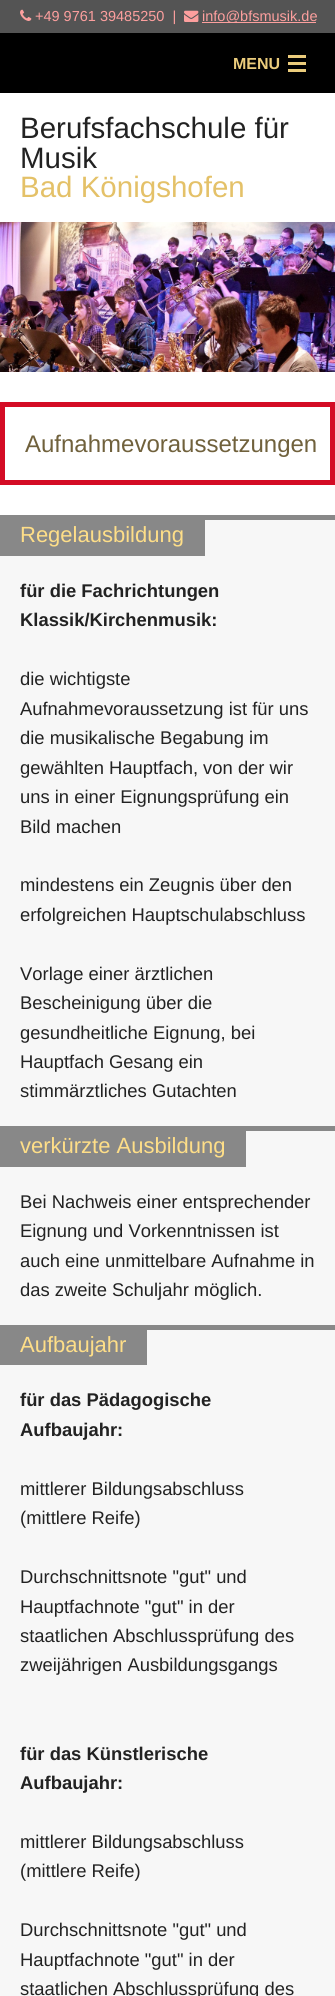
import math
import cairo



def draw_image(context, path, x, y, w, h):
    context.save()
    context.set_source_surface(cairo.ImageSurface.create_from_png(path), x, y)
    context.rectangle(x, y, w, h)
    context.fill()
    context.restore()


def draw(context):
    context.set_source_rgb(1, 1, 1)
    context.paint()
    context.set_source_rgb(84 / 255, 84 / 255, 84 / 255)
    context.rectangle(0, 0, 335, 33)
    context.fill()
    draw_image(context, "images/1.png", 20, 9, 12, 12)
    draw_image(context, "images/2.png", 184, 10, 15, 12)
    context.set_source_rgb(253 / 255, 159 / 255, 158 / 255)
    context.rectangle(202, 22, 114, 1)
    context.fill()
    context.set_source_rgb(0, 0, 0)
    context.rectangle(0, 33, 335, 60)
    context.fill()
    context.set_source_rgb(235 / 255, 204 / 255, 124 / 255)
    context.rectangle(288, 69, 18, 3)
    context.fill()
    context.rectangle(288, 62, 18, 3)
    context.fill()
    context.rectangle(288.5, 55.5, 17, 2)
    context.set_line_width(1)
    context.stroke()
    context.rectangle(289, 56, 16, 1)
    context.fill()
    draw_image(context, "images/3.png", 0, 222, 335, 150)
    context.rectangle(2.5, 404.5, 330, 78)
    context.set_source_rgb(212 / 255, 12 / 255, 37 / 255)
    context.set_line_width(5)
    context.stroke()
    context.set_source_rgb(247 / 255, 247 / 255, 247 / 255)
    context.rectangle(205, 520, 130, 36)
    context.fill()
    context.set_source_rgb(136 / 255, 136 / 255, 136 / 255)
    context.rectangle(0, 515, 335, 5)
    context.fill()
    context.rectangle(0, 520, 205, 36)
    context.fill()
    context.set_source_rgb(247 / 255, 247 / 255, 247 / 255)
    context.rectangle(0, 556, 335, 570)
    context.fill()
    context.rectangle(246, 1131, 89, 36)
    context.fill()
    context.set_source_rgb(136 / 255, 136 / 255, 136 / 255)
    context.rectangle(0, 1126, 335, 5)
    context.fill()
    context.rectangle(0, 1131, 246, 36)
    context.fill()
    context.set_source_rgb(247 / 255, 247 / 255, 247 / 255)
    context.rectangle(0, 1167, 335, 158)
    context.fill()
    context.rectangle(147, 1330, 188, 35)
    context.fill()
    context.set_source_rgb(136 / 255, 136 / 255, 136 / 255)
    context.rectangle(0, 1325, 335, 5)
    context.fill()
    context.rectangle(0, 1330, 147, 35)
    context.fill()
    context.set_source_rgb(247 / 255, 247 / 255, 247 / 255)
    context.rectangle(0, 1365, 335, 631)
    context.fill()
    context.select_font_face("Liberation Sans")
    context.set_font_size(14.5)
    context.set_source_rgb(253 / 255, 159 / 255, 158 / 255)
    context.move_to(35, 21)
    context.show_text("+49 9761 39485250  |")
    context.move_to(202, 21)
    context.show_text("info@bfsmusik.de")
    context.select_font_face("Liberation Sans", cairo.FontSlant.NORMAL, cairo.FontWeight.BOLD)
    context.set_font_size(16)
    context.set_source_rgb(235 / 255, 204 / 255, 124 / 255)
    context.move_to(233, 69)
    context.show_text("MENU")
    context.select_font_face("Liberation Sans")
    context.set_font_size(29.5)
    context.set_source_rgb(34 / 255, 34 / 255, 34 / 255)
    context.move_to(20, 138)
    context.show_text("Berufsfachschule für")
    context.move_to(20, 168)
    context.show_text("Musik")
    context.set_source_rgb(228 / 255, 193 / 255, 104 / 255)
    context.move_to(20, 197)
    context.show_text("Bad Königshofen")
    context.set_font_size(24)
    context.set_source_rgb(112 / 255, 97 / 255, 60 / 255)
    context.move_to(25, 452)
    context.show_text("Aufnahmevoraussetzungen")
    context.set_font_size(22)
    context.set_source_rgb(254 / 255, 222 / 255, 136 / 255)
    context.move_to(20, 542)
    context.show_text("Regelausbildung")
    context.select_font_face("Liberation Sans", cairo.FontSlant.NORMAL, cairo.FontWeight.BOLD)
    context.set_font_size(18.4)
    context.set_source_rgb(34 / 255, 34 / 255, 34 / 255)
    context.move_to(20, 597)
    context.show_text("für die Fachrichtungen")
    context.move_to(20, 626)
    context.show_text("Klassik/Kirchenmusik:")
    context.select_font_face("Liberation Sans")
    context.move_to(20, 685)
    context.show_text("die wichtigste")
    context.move_to(20, 715)
    context.show_text("Aufnahmevoraussetzung ist für uns")
    context.move_to(20, 744)
    context.show_text("die musikalische Begabung im")
    context.move_to(20, 774)
    context.show_text("gewählten Hauptfach, von der wir")
    context.move_to(20, 803)
    context.show_text("uns in einer Eignungsprüfung ein")
    context.move_to(20, 833)
    context.show_text("Bild machen")
    context.move_to(20, 891)
    context.show_text("mindestens ein Zeugnis über den")
    context.move_to(20, 921)
    context.show_text("erfolgreichen Hauptschulabschluss")
    context.move_to(20, 980)
    context.show_text("Vorlage einer ärztlichen")
    context.move_to(20, 1009)
    context.show_text("Bescheinigung über die")
    context.move_to(20, 1039)
    context.show_text("gesundheitliche Eignung, bei")
    context.move_to(20, 1068)
    context.show_text("Hauptfach Gesang ein")
    context.move_to(20, 1097)
    context.show_text("stimmärztliches Gutachten")
    context.set_font_size(22)
    context.set_source_rgb(254 / 255, 222 / 255, 136 / 255)
    context.move_to(20, 1153)
    context.show_text("verkürzte Ausbildung")
    context.set_font_size(18.4)
    context.set_source_rgb(34 / 255, 34 / 255, 34 / 255)
    context.move_to(20, 1208)
    context.show_text("Bei Nachweis einer entsprechender")
    context.move_to(20, 1237)
    context.show_text("Eignung und Vorkenntnissen ist")
    context.move_to(20, 1267)
    context.show_text("auch eine unmittelbare Aufnahme in")
    context.move_to(20, 1296)
    context.show_text("das zweite Schuljahr möglich.")
    context.set_font_size(22)
    context.set_source_rgb(254 / 255, 222 / 255, 136 / 255)
    context.move_to(20, 1352)
    context.show_text("Aufbaujahr")
    context.select_font_face("Liberation Sans", cairo.FontSlant.NORMAL, cairo.FontWeight.BOLD)
    context.set_font_size(18.4)
    context.set_source_rgb(34 / 255, 34 / 255, 34 / 255)
    context.move_to(20, 1406)
    context.show_text("für das Pädagogische")
    context.move_to(20, 1436)
    context.show_text("Aufbaujahr:")
    context.select_font_face("Liberation Sans")
    context.move_to(20, 1495)
    context.show_text("mittlerer Bildungsabschluss")
    context.move_to(20, 1524)
    context.show_text("(mittlere Reife)")
    context.move_to(20, 1583)
    context.show_text("Durchschnittsnote \"gut\" und")
    context.move_to(20, 1613)
    context.show_text("Hauptfachnote \"gut\" in der")
    context.move_to(20, 1642)
    context.show_text("staatlichen Abschlussprüfung des")
    context.move_to(20, 1671)
    context.show_text("zweijährigen Ausbildungsgangs")
    context.select_font_face("Liberation Sans", cairo.FontSlant.NORMAL, cairo.FontWeight.BOLD)
    context.move_to(20, 1760)
    context.show_text("für das Künstlerische")
    context.move_to(20, 1789)
    context.show_text("Aufbaujahr:")
    context.select_font_face("Liberation Sans")
    context.move_to(20, 1848)
    context.show_text("mittlerer Bildungsabschluss")
    context.move_to(20, 1877)
    context.show_text("(mittlere Reife)")
    context.move_to(20, 1936)
    context.show_text("Durchschnittsnote \"gut\" und")
    context.move_to(20, 1966)
    context.show_text("Hauptfachnote \"gut\" in der")
    context.move_to(20, 1995)
    context.show_text("staatlichen Abschlussprüfung des")


surface = cairo.ImageSurface(cairo.Format.RGB24, 335, 1996)
context = cairo.Context(surface)
options = cairo.FontOptions()
options.set_hint_metrics(cairo.HintMetrics.OFF)
options.set_hint_style(cairo.HintStyle.NONE)
context.set_font_options(options)
context.set_miter_limit(4)
draw(context)
surface.write_to_png("out.png")
